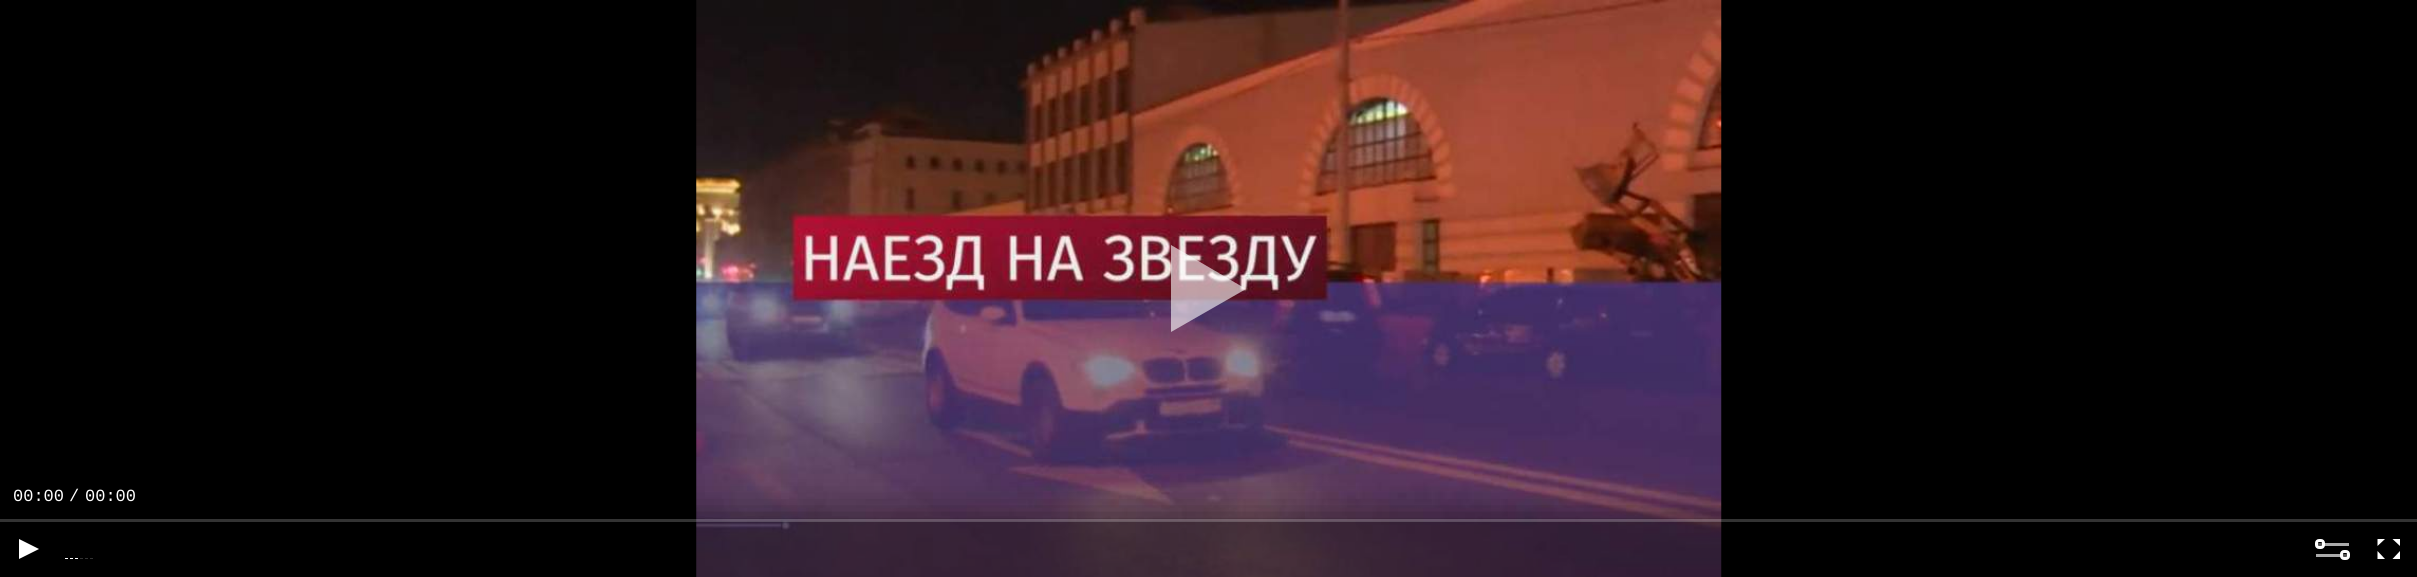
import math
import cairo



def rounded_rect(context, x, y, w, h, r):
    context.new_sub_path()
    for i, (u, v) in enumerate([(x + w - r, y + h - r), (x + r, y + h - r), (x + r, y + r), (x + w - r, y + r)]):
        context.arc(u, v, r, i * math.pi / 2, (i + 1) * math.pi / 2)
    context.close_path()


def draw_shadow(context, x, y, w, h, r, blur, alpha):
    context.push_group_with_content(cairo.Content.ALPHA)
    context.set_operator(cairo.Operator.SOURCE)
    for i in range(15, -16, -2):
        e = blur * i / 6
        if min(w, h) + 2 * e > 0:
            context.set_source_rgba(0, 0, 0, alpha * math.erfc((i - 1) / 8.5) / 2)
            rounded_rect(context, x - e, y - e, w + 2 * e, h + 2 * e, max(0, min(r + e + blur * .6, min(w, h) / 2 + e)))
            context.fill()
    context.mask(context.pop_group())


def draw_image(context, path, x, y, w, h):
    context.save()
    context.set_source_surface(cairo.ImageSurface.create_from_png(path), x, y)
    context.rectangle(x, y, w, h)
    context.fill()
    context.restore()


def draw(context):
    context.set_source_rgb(0, 0, 0)
    context.paint()
    draw_image(context, "images/1.png", 696, 0, 1026, 577)
    context.set_source_rgba(1, 1, 1, 0.6)
    context.new_path()
    context.move_to(1171, 332)
    context.line_to(1171, 245)
    context.line_to(1246, 289)
    context.close_path()
    context.fill()
    context.save()
    context.set_fill_rule(cairo.FillRule.EVEN_ODD)
    context.new_path()
    context.move_to(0, 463)
    context.line_to(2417, 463)
    context.line_to(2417, 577)
    context.line_to(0, 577)
    context.close_path()
    context.move_to(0, 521)
    context.line_to(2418, 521)
    context.line_to(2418, 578)
    context.line_to(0, 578)
    context.close_path()
    context.clip()
    context.set_source_rgb(0, 0, 0)
    draw_shadow(context, -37, 521, 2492, 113, 0, 19, 0.6)
    context.restore()
    context.set_source_rgba(0, 0, 0, 0.4)
    context.rectangle(696, 521, 1026, 56)
    context.fill()
    context.set_source_rgb(1, 1, 1)
    context.new_path()
    context.move_to(19, 559)
    context.line_to(19, 539)
    context.line_to(39, 549)
    context.close_path()
    context.fill()
    context.rectangle(65, 558, 3, 1)
    context.fill()
    context.rectangle(70, 558, 3, 1)
    context.fill()
    context.rectangle(75, 558, 3, 1)
    context.fill()
    context.set_source_rgb(51 / 255, 51 / 255, 51 / 255)
    context.rectangle(80, 558, 3, 1)
    context.fill()
    context.rectangle(85, 558, 3, 1)
    context.fill()
    context.rectangle(90, 558, 3, 1)
    context.fill()
    context.set_source_rgb(171 / 255, 171 / 255, 171 / 255)
    context.rectangle(2316, 543, 33, 3)
    context.fill()
    context.rectangle(2316, 554, 33, 3)
    context.fill()
    context.set_source_rgba(0, 0, 0, 0.5)
    rounded_rect(context, 2316.5, 540.5, 7, 7, 2.5)
    context.fill_preserve()
    context.set_source_rgb(1, 1, 1)
    context.set_line_width(3)
    context.stroke()
    context.set_source_rgba(0, 0, 0, 0.5)
    rounded_rect(context, 2341.5, 551.5, 7, 7, 2.5)
    context.fill_preserve()
    context.set_source_rgb(1, 1, 1)
    context.stroke()
    context.new_path()
    context.move_to(2400, 539)
    context.line_to(2400, 546)
    context.line_to(2392.5, 539)
    context.close_path()
    context.move_to(2377.5, 546)
    context.line_to(2377.5, 539)
    context.line_to(2385, 539)
    context.close_path()
    context.move_to(2400, 551)
    context.line_to(2400, 559)
    context.line_to(2392.5, 559)
    context.close_path()
    context.fill()
    context.new_path()
    context.move_to(2377.5, 559)
    context.line_to(2377.5, 551)
    context.line_to(2385, 559)
    context.close_path()
    context.fill()
    context.set_source_rgba(1, 1, 1, 0.2)
    context.rectangle(0, 519, 2417, 3)
    context.fill()
    context.select_font_face("Liberation Mono")
    context.set_font_size(17)
    context.set_source_rgb(1, 1, 1)
    context.move_to(13, 501)
    context.show_text("00:00")
    context.move_to(69, 501)
    context.show_text("/")
    context.move_to(85, 501)
    context.show_text("00:00")


surface = cairo.ImageSurface(cairo.Format.RGB24, 2417, 577)
context = cairo.Context(surface)
options = cairo.FontOptions()
options.set_hint_metrics(cairo.HintMetrics.OFF)
options.set_hint_style(cairo.HintStyle.NONE)
context.set_font_options(options)
context.set_miter_limit(4)
draw(context)
surface.write_to_png("out.png")
